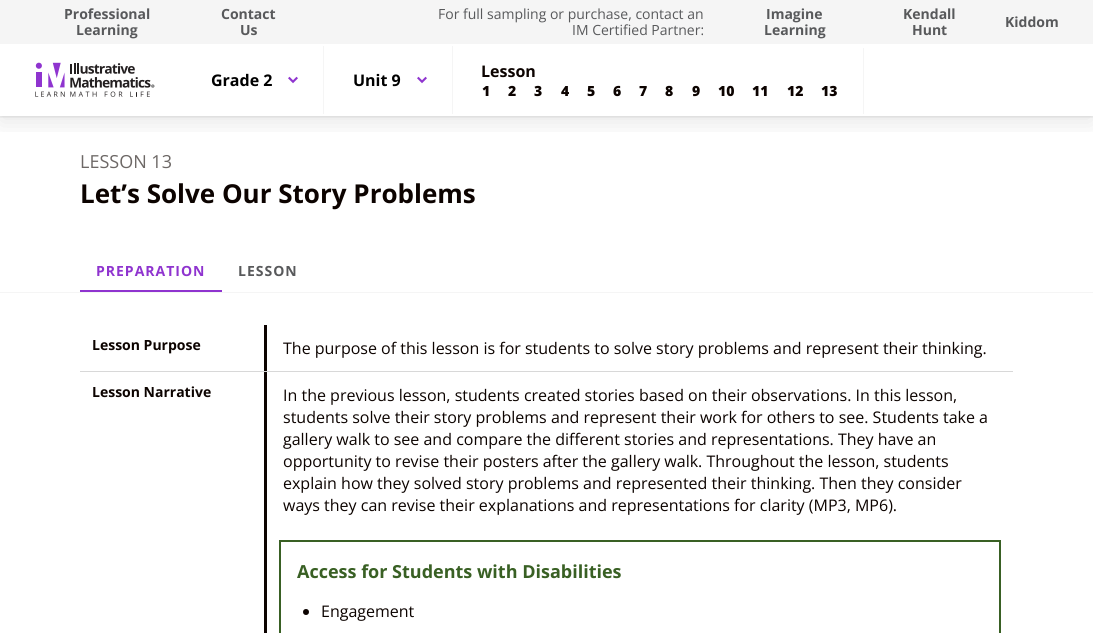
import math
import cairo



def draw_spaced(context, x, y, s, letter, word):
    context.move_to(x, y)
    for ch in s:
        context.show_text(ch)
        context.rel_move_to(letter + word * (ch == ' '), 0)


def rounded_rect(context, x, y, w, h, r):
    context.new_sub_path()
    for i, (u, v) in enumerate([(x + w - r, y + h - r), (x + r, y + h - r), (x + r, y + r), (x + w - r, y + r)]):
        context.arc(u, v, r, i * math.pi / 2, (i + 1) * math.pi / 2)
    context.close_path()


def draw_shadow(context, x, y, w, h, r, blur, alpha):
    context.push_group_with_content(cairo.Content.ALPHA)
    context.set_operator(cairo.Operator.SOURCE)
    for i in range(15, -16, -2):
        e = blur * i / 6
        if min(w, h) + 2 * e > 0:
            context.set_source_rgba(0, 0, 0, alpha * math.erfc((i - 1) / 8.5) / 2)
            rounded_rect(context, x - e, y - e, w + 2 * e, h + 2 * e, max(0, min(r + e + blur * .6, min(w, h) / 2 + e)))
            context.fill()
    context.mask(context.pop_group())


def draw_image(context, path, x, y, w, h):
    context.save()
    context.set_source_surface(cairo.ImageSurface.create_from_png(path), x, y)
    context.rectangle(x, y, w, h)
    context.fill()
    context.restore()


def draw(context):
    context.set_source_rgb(1, 1, 1)
    context.paint()
    context.save()
    context.rectangle(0, 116, 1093, 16)
    context.clip()
    context.set_source_rgb(0, 0, 0)
    draw_shadow(context, 0, 50, 1093, 72, 0, 12, 0.1)
    context.restore()
    context.save()
    context.rectangle(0, 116, 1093, 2)
    context.clip()
    context.set_source_rgb(0, 0, 0)
    draw_shadow(context, 0, 45, 1093, 72, 0, 1.5, 0.1)
    context.restore()
    context.set_source_rgb(245 / 255, 245 / 255, 245 / 255)
    context.rectangle(0, 0, 1093, 44)
    context.fill()
    draw_image(context, "images/1.png", 35, 62, 120, 35)
    context.rectangle(323, 46, 1, 68)
    context.fill()
    draw_image(context, "images/2.png", 288, 76, 10, 8)
    context.rectangle(452, 46, 1, 68)
    context.fill()
    draw_image(context, "images/2.png", 417, 76, 10, 8)
    context.rectangle(863, 48, 1, 66)
    context.fill()
    context.rectangle(0, 292, 1093, 1)
    context.fill()
    context.set_source_rgb(143 / 255, 52 / 255, 207 / 255)
    context.rectangle(80, 290, 142, 2)
    context.fill()
    context.set_source_rgb(12 / 255, 3 / 255, 0)
    context.rectangle(264, 325, 3, 46)
    context.fill()
    context.set_source_rgb(216 / 255, 216 / 255, 216 / 255)
    context.rectangle(80, 371, 933, 1)
    context.fill()
    context.set_source_rgb(12 / 255, 3 / 255, 0)
    context.rectangle(264, 372, 3, 261)
    context.fill()
    context.rectangle(280, 541, 720, 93)
    context.set_source_rgb(57 / 255, 96 / 255, 36 / 255)
    context.stroke()
    context.set_source_rgb(12 / 255, 3 / 255, 0)
    context.arc(306, 612, 3, 0, 2 * math.pi)
    context.fill()
    context.select_font_face("Open Sans", cairo.FontSlant.NORMAL, cairo.FontWeight.BOLD)
    context.set_font_size(14)
    context.set_source_rgb(88 / 255, 89 / 255, 91 / 255)
    context.move_to(64, 19)
    context.show_text("Professional")
    context.move_to(76, 35)
    context.show_text("Learning")
    context.move_to(221, 19)
    context.show_text("Contact")
    context.move_to(240, 35)
    context.show_text("Us")
    context.select_font_face("Open Sans")
    context.move_to(438, 19)
    context.show_text("For full sampling or purchase, contact an")
    context.move_to(572, 35)
    context.show_text("IM Certified Partner:")
    context.select_font_face("Open Sans", cairo.FontSlant.NORMAL, cairo.FontWeight.BOLD)
    context.move_to(766, 19)
    context.show_text("Imagine")
    context.move_to(764, 35)
    context.show_text("Learning")
    context.move_to(903, 19)
    context.show_text("Kendall")
    context.move_to(912, 35)
    context.show_text("Hunt")
    context.move_to(1005, 27)
    context.show_text("Kiddom")
    context.set_font_size(16)
    context.set_source_rgb(0, 0, 0)
    context.move_to(211, 86)
    context.show_text("Grade 2")
    context.move_to(353, 86)
    context.show_text("Unit 9")
    context.set_source_rgb(12 / 255, 3 / 255, 0)
    context.move_to(481, 77)
    context.show_text("Lesson")
    context.select_font_face("Open Sans ExtraBold")
    context.set_font_size(14)
    context.move_to(482, 96)
    context.show_text("1")
    context.move_to(508, 96)
    context.show_text("2")
    context.move_to(534, 96)
    context.show_text("3")
    context.move_to(561, 96)
    context.show_text("4")
    context.move_to(587, 96)
    context.show_text("5")
    context.move_to(613, 96)
    context.show_text("6")
    context.move_to(639, 96)
    context.show_text("7")
    context.move_to(665, 96)
    context.show_text("8")
    context.move_to(692, 96)
    context.show_text("9")
    context.move_to(718, 96)
    context.show_text("10")
    context.move_to(752, 96)
    context.show_text("11")
    context.move_to(787, 96)
    context.show_text("12")
    context.move_to(821, 96)
    context.show_text("13")
    context.select_font_face("Open Sans")
    context.set_font_size(18)
    context.set_source_rgb(109 / 255, 104 / 255, 102 / 255)
    context.move_to(80, 168)
    context.show_text("LESSON 13")
    context.select_font_face("Open Sans", cairo.FontSlant.NORMAL, cairo.FontWeight.BOLD)
    context.set_font_size(26)
    context.set_source_rgb(12 / 255, 3 / 255, 0)
    context.move_to(80, 203)
    context.show_text("Let’s Solve Our Story Problems")
    context.set_font_size(14)
    context.set_source_rgb(143 / 255, 52 / 255, 207 / 255)
    draw_spaced(context, 96, 276, "PREPARATION", 1, 0)
    context.set_source_rgb(88 / 255, 89 / 255, 91 / 255)
    draw_spaced(context, 238, 276, "LESSON", 1, 0)
    context.set_source_rgb(12 / 255, 3 / 255, 0)
    context.move_to(92, 350)
    context.show_text("Lesson Purpose")
    context.select_font_face("Open Sans")
    context.set_font_size(16)
    context.move_to(283, 354)
    context.show_text("The purpose of this lesson is for students to solve story problems and represent their thinking.")
    context.select_font_face("Open Sans", cairo.FontSlant.NORMAL, cairo.FontWeight.BOLD)
    context.set_font_size(14)
    context.move_to(92, 397)
    context.show_text("Lesson Narrative")
    context.select_font_face("Open Sans")
    context.set_font_size(16)
    context.move_to(283, 401)
    context.show_text("In the previous lesson, students created stories based on their observations. In this lesson,")
    context.move_to(283, 423)
    context.show_text("students solve their story problems and represent their work for others to see. Students take a")
    context.move_to(283, 445)
    context.show_text("gallery walk to see and compare the different stories and representations. They have an")
    context.move_to(283, 467)
    context.show_text("opportunity to revise their posters after the gallery walk. Throughout the lesson, students")
    context.move_to(283, 489)
    context.show_text("explain how they solved story problems and represented their thinking. Then they consider")
    context.move_to(283, 511)
    context.show_text("ways they can revise their explanations and representations for clarity (MP3, MP6).")
    context.select_font_face("Open Sans", cairo.FontSlant.NORMAL, cairo.FontWeight.BOLD)
    context.set_font_size(18)
    context.set_source_rgb(57 / 255, 96 / 255, 36 / 255)
    context.move_to(297, 578)
    context.show_text("Access for Students with Disabilities")
    context.select_font_face("Open Sans")
    context.set_font_size(16)
    context.set_source_rgb(12 / 255, 3 / 255, 0)
    context.move_to(321, 617)
    context.show_text("Engagement")


surface = cairo.ImageSurface(cairo.Format.RGB24, 1093, 633)
context = cairo.Context(surface)
options = cairo.FontOptions()
options.set_hint_metrics(cairo.HintMetrics.OFF)
options.set_hint_style(cairo.HintStyle.NONE)
context.set_font_options(options)
context.set_miter_limit(4)
draw(context)
surface.write_to_png("out.png")
